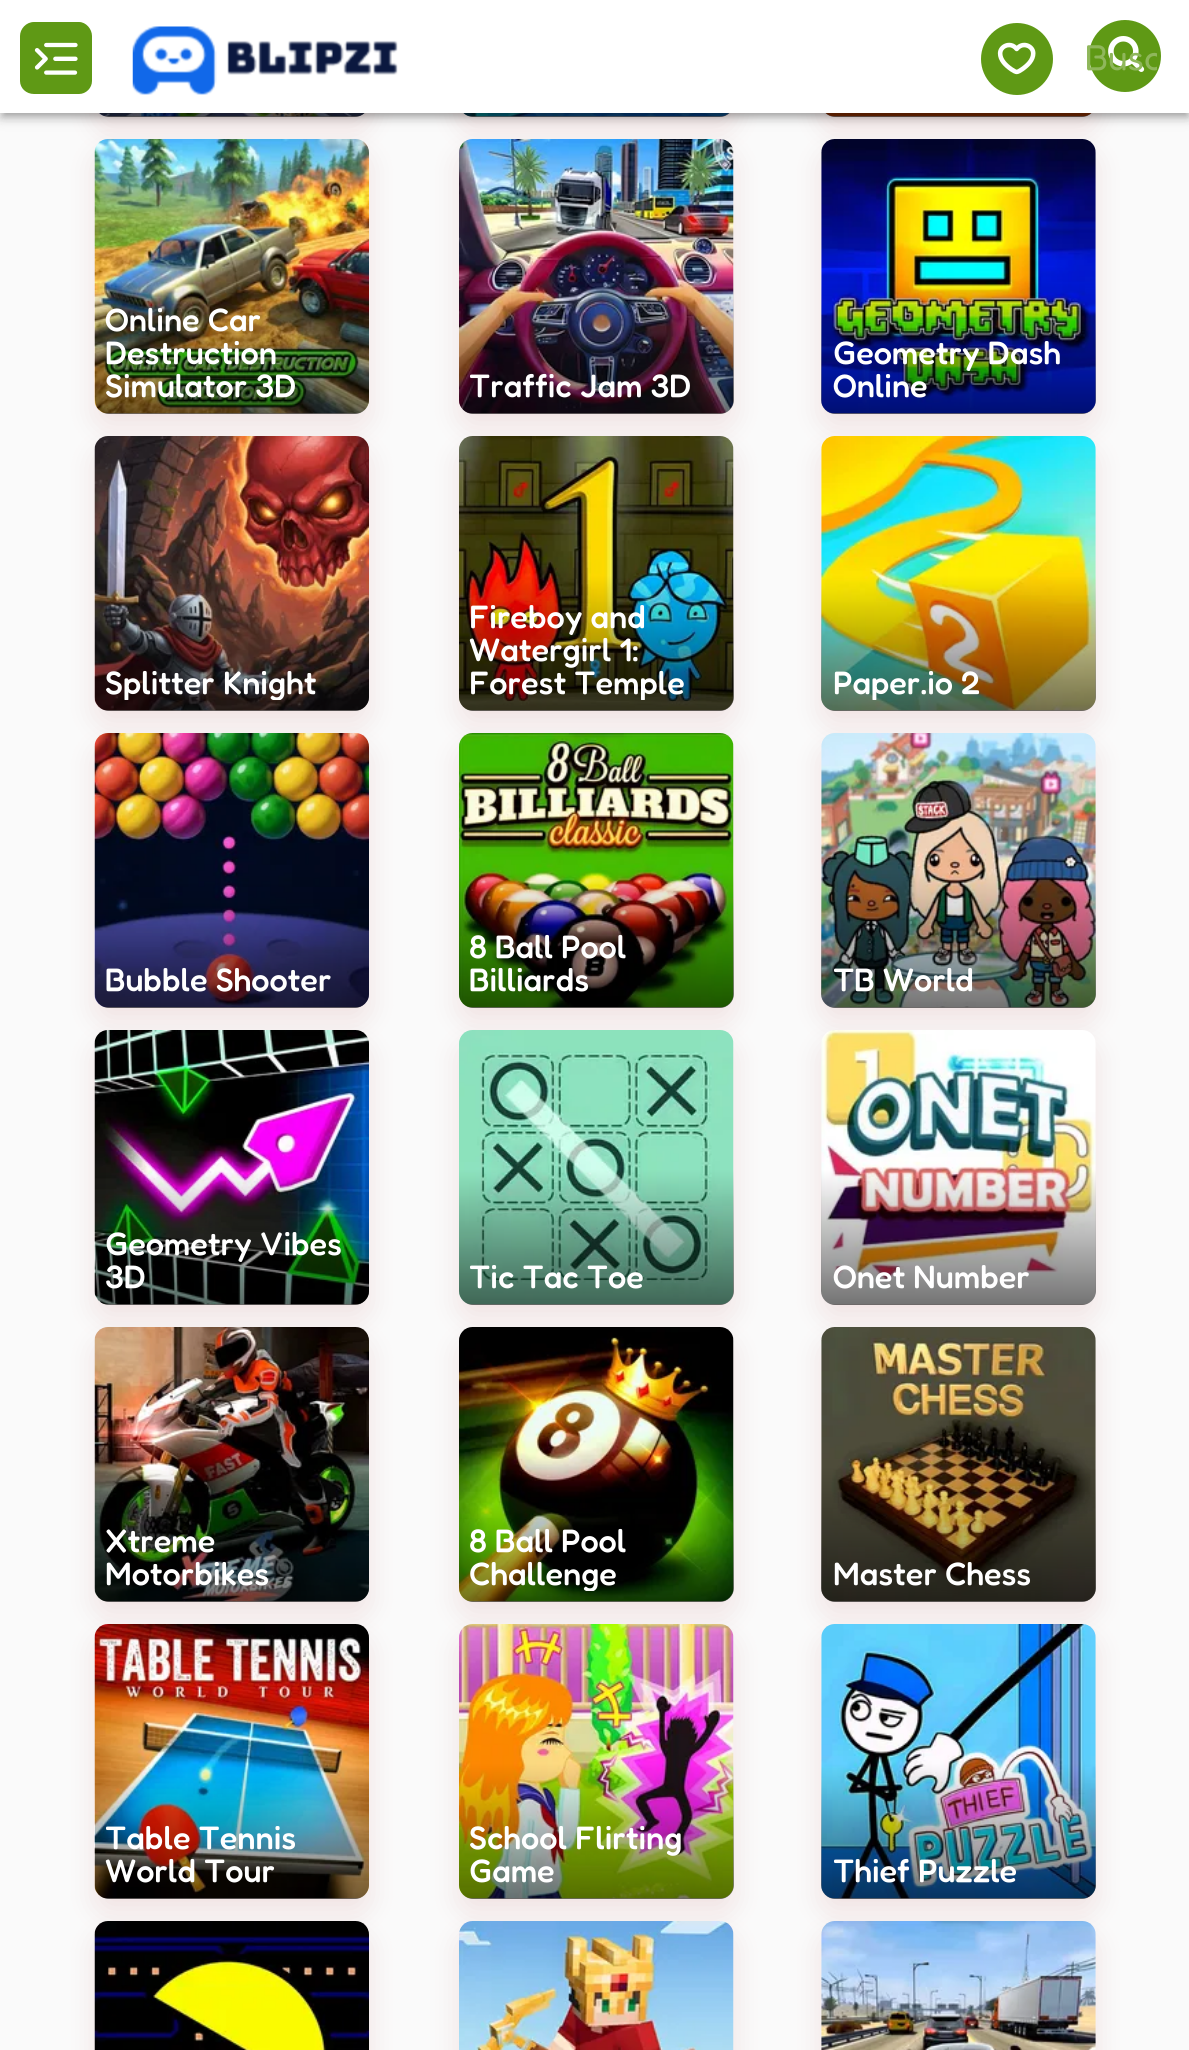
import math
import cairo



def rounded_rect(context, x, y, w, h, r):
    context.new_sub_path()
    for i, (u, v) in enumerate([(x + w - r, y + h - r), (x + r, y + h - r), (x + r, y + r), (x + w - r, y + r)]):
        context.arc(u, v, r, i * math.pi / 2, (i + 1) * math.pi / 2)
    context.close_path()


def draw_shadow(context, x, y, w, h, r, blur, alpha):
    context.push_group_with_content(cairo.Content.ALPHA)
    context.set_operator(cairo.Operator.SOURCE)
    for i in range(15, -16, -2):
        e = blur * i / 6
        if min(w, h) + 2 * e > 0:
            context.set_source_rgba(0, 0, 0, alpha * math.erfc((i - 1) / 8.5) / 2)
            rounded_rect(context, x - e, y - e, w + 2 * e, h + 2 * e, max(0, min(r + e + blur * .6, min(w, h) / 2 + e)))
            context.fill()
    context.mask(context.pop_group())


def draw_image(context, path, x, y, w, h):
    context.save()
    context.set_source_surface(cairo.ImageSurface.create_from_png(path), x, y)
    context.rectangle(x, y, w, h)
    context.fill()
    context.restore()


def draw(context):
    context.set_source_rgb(250 / 255, 250 / 255, 250 / 255)
    context.paint()
    context.set_source_rgb(211 / 255, 152 / 255, 152 / 255)
    draw_shadow(context, 95, -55, 274, 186, 14, 13.5, 0.24)
    draw_image(context, "images/5.png", 99, 113, 266, 4)
    gradient = cairo.LinearGradient(232, -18, 232, 117)
    gradient.add_color_stop_rgba(0, 0, 0, 0, 0)
    gradient.add_color_stop_rgba(1, 0, 0, 0, 0.55)
    context.set_source(gradient)
    context.new_path()
    context.move_to(95, -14)
    context.line_to(369, -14)
    context.line_to(369, 103)
    context.curve_to(369, 110.5, 362.5, 117, 355, 117)
    context.line_to(109, 117)
    context.curve_to(101.5, 117, 95, 110.5, 95, 103)
    context.close_path()
    context.fill()
    context.set_source_rgb(211 / 255, 152 / 255, 152 / 255)
    draw_shadow(context, 459, -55, 275, 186, 14, 13.5, 0.24)
    draw_image(context, "images/6.png", 463, 113, 266, 4)
    gradient = cairo.LinearGradient(596, -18, 596, 117)
    gradient.add_color_stop_rgba(0, 0, 0, 0, 0)
    gradient.add_color_stop_rgba(1, 0, 0, 0, 0.55)
    context.set_source(gradient)
    context.new_path()
    context.move_to(459, -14)
    context.line_to(734, -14)
    context.line_to(734, 103)
    context.curve_to(734, 110.5, 727.5, 117, 720, 117)
    context.line_to(473, 117)
    context.curve_to(465.5, 117, 459, 110.5, 459, 103)
    context.close_path()
    context.fill()
    context.set_source_rgb(211 / 255, 152 / 255, 152 / 255)
    draw_shadow(context, 821, -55, 275, 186, 14, 13.5, 0.24)
    draw_image(context, "images/7.png", 826, 113, 265, 4)
    gradient = cairo.LinearGradient(959, -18, 959, 117)
    gradient.add_color_stop_rgba(0, 0, 0, 0, 0)
    gradient.add_color_stop_rgba(1, 0, 0, 0, 0.55)
    context.set_source(gradient)
    context.new_path()
    context.move_to(821, -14)
    context.line_to(1096, -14)
    context.line_to(1096, 103)
    context.curve_to(1096, 110.5, 1089.5, 117, 1082, 117)
    context.line_to(835, 117)
    context.curve_to(827.5, 117, 821, 110.5, 821, 103)
    context.close_path()
    context.fill()
    context.set_source_rgb(211 / 255, 152 / 255, 152 / 255)
    draw_shadow(context, 95, 153, 274, 275, 14, 13.5, 0.24)
    draw_image(context, "images/8.png", 94, 139, 275, 275)
    draw_shadow(context, 459, 153, 275, 275, 14, 13.5, 0.24)
    draw_image(context, "images/9.png", 459, 139, 275, 275)
    draw_shadow(context, 821, 153, 275, 275, 14, 13.5, 0.24)
    draw_image(context, "images/10.png", 821, 139, 275, 275)
    context.set_source_rgb(0, 0, 0)
    draw_shadow(context, 0, 2, 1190, 113, 0, 9, 0.12)
    draw_shadow(context, 0, 7, 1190, 112, 0, 4.5, 0.14)
    draw_shadow(context, 5, 11, 1181, 104, 0, 3.5, 0.2)
    context.set_source_rgb(1, 1, 1)
    context.rectangle(0, 0, 1189, 113)
    context.fill()
    context.set_source_rgb(95 / 255, 153 / 255, 21 / 255)
    context.new_path()
    context.move_to(79, 22)
    context.line_to(34, 22)
    context.curve_to(26, 22, 20, 29, 20, 36)
    context.line_to(20, 81)
    context.curve_to(20, 88, 26, 94, 34, 94)
    context.line_to(79, 94)
    context.curve_to(86, 94, 92, 88, 92, 81)
    context.line_to(92, 36)
    context.curve_to(92, 29, 86, 22, 79, 22)
    context.close_path()
    context.fill()
    draw_image(context, "images/1.png", 34, 42, 44, 33)
    draw_image(context, "images/2.png", 132, 26, 266, 69)
    context.arc(1017, 59, 33.5, 0, 2 * math.pi)
    context.fill_preserve()
    context.set_line_width(5)
    context.stroke()
    draw_image(context, "images/3.png", 997, 42, 39, 33)
    context.arc(1125, 56, 33.5, 0, 2 * math.pi)
    context.fill_preserve()
    context.stroke()
    draw_image(context, "images/4.png", 1108, 36, 37, 36)
    gradient = cairo.LinearGradient(232, 279, 232, 414)
    gradient.add_color_stop_rgba(0, 0, 0, 0, 0)
    gradient.add_color_stop_rgba(1, 0, 0, 0, 0.55)
    context.set_source(gradient)
    context.new_path()
    context.move_to(95, 279)
    context.line_to(369, 279)
    context.line_to(369, 400)
    context.curve_to(369, 407.5, 362.5, 414, 355, 414)
    context.line_to(109, 414)
    context.curve_to(101.5, 414, 95, 407.5, 95, 400)
    context.close_path()
    context.fill()
    gradient = cairo.LinearGradient(596, 279, 596, 414)
    gradient.add_color_stop_rgba(0, 0, 0, 0, 0)
    gradient.add_color_stop_rgba(1, 0, 0, 0, 0.55)
    context.set_source(gradient)
    context.new_path()
    context.move_to(459, 279)
    context.line_to(734, 279)
    context.line_to(734, 400)
    context.curve_to(734, 407.5, 727.5, 414, 720, 414)
    context.line_to(473, 414)
    context.curve_to(465.5, 414, 459, 407.5, 459, 400)
    context.close_path()
    context.fill()
    gradient = cairo.LinearGradient(959, 279, 959, 414)
    gradient.add_color_stop_rgba(0, 0, 0, 0, 0)
    gradient.add_color_stop_rgba(1, 0, 0, 0, 0.55)
    context.set_source(gradient)
    context.new_path()
    context.move_to(821, 279)
    context.line_to(1096, 279)
    context.line_to(1096, 400)
    context.curve_to(1096, 407.5, 1089.5, 414, 1082, 414)
    context.line_to(835, 414)
    context.curve_to(827.5, 414, 821, 407.5, 821, 400)
    context.close_path()
    context.fill()
    context.set_source_rgb(211 / 255, 152 / 255, 152 / 255)
    draw_shadow(context, 95, 450, 274, 275, 14, 13.5, 0.24)
    draw_image(context, "images/11.png", 94, 436, 275, 275)
    gradient = cairo.LinearGradient(232, 576, 232, 711)
    gradient.add_color_stop_rgba(0, 0, 0, 0, 0)
    gradient.add_color_stop_rgba(1, 0, 0, 0, 0.55)
    context.set_source(gradient)
    context.new_path()
    context.move_to(95, 576)
    context.line_to(369, 576)
    context.line_to(369, 697)
    context.curve_to(369, 704.5, 362.5, 711, 355, 711)
    context.line_to(109, 711)
    context.curve_to(101.5, 711, 95, 704.5, 95, 697)
    context.close_path()
    context.fill()
    context.set_source_rgb(211 / 255, 152 / 255, 152 / 255)
    draw_shadow(context, 459, 450, 275, 275, 14, 13.5, 0.24)
    draw_image(context, "images/12.png", 459, 436, 275, 275)
    gradient = cairo.LinearGradient(596, 576, 596, 711)
    gradient.add_color_stop_rgba(0, 0, 0, 0, 0)
    gradient.add_color_stop_rgba(1, 0, 0, 0, 0.55)
    context.set_source(gradient)
    context.new_path()
    context.move_to(459, 576)
    context.line_to(734, 576)
    context.line_to(734, 697)
    context.curve_to(734, 704.5, 727.5, 711, 720, 711)
    context.line_to(473, 711)
    context.curve_to(465.5, 711, 459, 704.5, 459, 697)
    context.close_path()
    context.fill()
    context.set_source_rgb(211 / 255, 152 / 255, 152 / 255)
    draw_shadow(context, 821, 450, 275, 275, 14, 13.5, 0.24)
    draw_image(context, "images/13.png", 821, 436, 275, 275)
    gradient = cairo.LinearGradient(959, 576, 959, 711)
    gradient.add_color_stop_rgba(0, 0, 0, 0, 0)
    gradient.add_color_stop_rgba(1, 0, 0, 0, 0.55)
    context.set_source(gradient)
    context.new_path()
    context.move_to(821, 576)
    context.line_to(1096, 576)
    context.line_to(1096, 697)
    context.curve_to(1096, 704.5, 1089.5, 711, 1082, 711)
    context.line_to(835, 711)
    context.curve_to(827.5, 711, 821, 704.5, 821, 697)
    context.close_path()
    context.fill()
    context.set_source_rgb(211 / 255, 152 / 255, 152 / 255)
    draw_shadow(context, 95, 747, 274, 275, 14, 13.5, 0.24)
    draw_image(context, "images/14.png", 94, 733, 275, 275)
    gradient = cairo.LinearGradient(232, 873, 232, 1008)
    gradient.add_color_stop_rgba(0, 0, 0, 0, 0)
    gradient.add_color_stop_rgba(1, 0, 0, 0, 0.55)
    context.set_source(gradient)
    context.new_path()
    context.move_to(95, 873)
    context.line_to(369, 873)
    context.line_to(369, 994)
    context.curve_to(369, 1001.5, 362.5, 1008, 355, 1008)
    context.line_to(109, 1008)
    context.curve_to(101.5, 1008, 95, 1001.5, 95, 994)
    context.close_path()
    context.fill()
    context.set_source_rgb(211 / 255, 152 / 255, 152 / 255)
    draw_shadow(context, 459, 747, 275, 275, 14, 13.5, 0.24)
    draw_image(context, "images/15.png", 459, 733, 275, 275)
    gradient = cairo.LinearGradient(596, 873, 596, 1008)
    gradient.add_color_stop_rgba(0, 0, 0, 0, 0)
    gradient.add_color_stop_rgba(1, 0, 0, 0, 0.55)
    context.set_source(gradient)
    context.new_path()
    context.move_to(459, 873)
    context.line_to(734, 873)
    context.line_to(734, 994)
    context.curve_to(734, 1001.5, 727.5, 1008, 720, 1008)
    context.line_to(473, 1008)
    context.curve_to(465.5, 1008, 459, 1001.5, 459, 994)
    context.close_path()
    context.fill()
    context.set_source_rgb(211 / 255, 152 / 255, 152 / 255)
    draw_shadow(context, 821, 747, 275, 275, 14, 13.5, 0.24)
    draw_image(context, "images/16.png", 821, 733, 275, 275)
    gradient = cairo.LinearGradient(959, 873, 959, 1008)
    gradient.add_color_stop_rgba(0, 0, 0, 0, 0)
    gradient.add_color_stop_rgba(1, 0, 0, 0, 0.55)
    context.set_source(gradient)
    context.new_path()
    context.move_to(821, 873)
    context.line_to(1096, 873)
    context.line_to(1096, 994)
    context.curve_to(1096, 1001.5, 1089.5, 1008, 1082, 1008)
    context.line_to(835, 1008)
    context.curve_to(827.5, 1008, 821, 1001.5, 821, 994)
    context.close_path()
    context.fill()
    context.set_source_rgb(211 / 255, 152 / 255, 152 / 255)
    draw_shadow(context, 95, 1044, 274, 275, 14, 13.5, 0.24)
    draw_image(context, "images/17.png", 94, 1030, 275, 275)
    gradient = cairo.LinearGradient(232, 1170, 232, 1305)
    gradient.add_color_stop_rgba(0, 0, 0, 0, 0)
    gradient.add_color_stop_rgba(1, 0, 0, 0, 0.55)
    context.set_source(gradient)
    context.new_path()
    context.move_to(95, 1170)
    context.line_to(369, 1170)
    context.line_to(369, 1291)
    context.curve_to(369, 1298.5, 362.5, 1305, 355, 1305)
    context.line_to(109, 1305)
    context.curve_to(101.5, 1305, 95, 1298.5, 95, 1291)
    context.close_path()
    context.fill()
    context.set_source_rgb(211 / 255, 152 / 255, 152 / 255)
    draw_shadow(context, 459, 1044, 275, 275, 14, 13.5, 0.24)
    draw_image(context, "images/18.png", 459, 1030, 275, 275)
    gradient = cairo.LinearGradient(596, 1170, 596, 1305)
    gradient.add_color_stop_rgba(0, 0, 0, 0, 0)
    gradient.add_color_stop_rgba(1, 0, 0, 0, 0.55)
    context.set_source(gradient)
    context.new_path()
    context.move_to(459, 1170)
    context.line_to(734, 1170)
    context.line_to(734, 1291)
    context.curve_to(734, 1298.5, 727.5, 1305, 720, 1305)
    context.line_to(473, 1305)
    context.curve_to(465.5, 1305, 459, 1298.5, 459, 1291)
    context.close_path()
    context.fill()
    context.set_source_rgb(211 / 255, 152 / 255, 152 / 255)
    draw_shadow(context, 821, 1044, 275, 275, 14, 13.5, 0.24)
    draw_image(context, "images/19.png", 821, 1030, 275, 274)
    gradient = cairo.LinearGradient(959, 1170, 959, 1305)
    gradient.add_color_stop_rgba(0, 0, 0, 0, 0)
    gradient.add_color_stop_rgba(1, 0, 0, 0, 0.55)
    context.set_source(gradient)
    context.new_path()
    context.move_to(821, 1170)
    context.line_to(1096, 1170)
    context.line_to(1096, 1291)
    context.curve_to(1096, 1298.5, 1089.5, 1305, 1082, 1305)
    context.line_to(835, 1305)
    context.curve_to(827.5, 1305, 821, 1298.5, 821, 1291)
    context.close_path()
    context.fill()
    context.set_source_rgb(211 / 255, 152 / 255, 152 / 255)
    draw_shadow(context, 95, 1341, 274, 275, 14, 13.5, 0.24)
    draw_image(context, "images/20.png", 94, 1327, 275, 275)
    gradient = cairo.LinearGradient(232, 1467, 232, 1602)
    gradient.add_color_stop_rgba(0, 0, 0, 0, 0)
    gradient.add_color_stop_rgba(1, 0, 0, 0, 0.55)
    context.set_source(gradient)
    context.new_path()
    context.move_to(95, 1467)
    context.line_to(369, 1467)
    context.line_to(369, 1588)
    context.curve_to(369, 1595.5, 362.5, 1602, 355, 1602)
    context.line_to(109, 1602)
    context.curve_to(101.5, 1602, 95, 1595.5, 95, 1588)
    context.close_path()
    context.fill()
    context.set_source_rgb(211 / 255, 152 / 255, 152 / 255)
    draw_shadow(context, 459, 1341, 275, 275, 14, 13.5, 0.24)
    draw_image(context, "images/21.png", 459, 1327, 275, 275)
    gradient = cairo.LinearGradient(596, 1467, 596, 1602)
    gradient.add_color_stop_rgba(0, 0, 0, 0, 0)
    gradient.add_color_stop_rgba(1, 0, 0, 0, 0.55)
    context.set_source(gradient)
    context.new_path()
    context.move_to(459, 1467)
    context.line_to(734, 1467)
    context.line_to(734, 1588)
    context.curve_to(734, 1595.5, 727.5, 1602, 720, 1602)
    context.line_to(473, 1602)
    context.curve_to(465.5, 1602, 459, 1595.5, 459, 1588)
    context.close_path()
    context.fill()
    context.set_source_rgb(211 / 255, 152 / 255, 152 / 255)
    draw_shadow(context, 821, 1341, 275, 275, 14, 13.5, 0.24)
    draw_image(context, "images/22.png", 821, 1327, 275, 275)
    gradient = cairo.LinearGradient(959, 1467, 959, 1602)
    gradient.add_color_stop_rgba(0, 0, 0, 0, 0)
    gradient.add_color_stop_rgba(1, 0, 0, 0, 0.55)
    context.set_source(gradient)
    context.new_path()
    context.move_to(821, 1467)
    context.line_to(1096, 1467)
    context.line_to(1096, 1588)
    context.curve_to(1096, 1595.5, 1089.5, 1602, 1082, 1602)
    context.line_to(835, 1602)
    context.curve_to(827.5, 1602, 821, 1595.5, 821, 1588)
    context.close_path()
    context.fill()
    context.set_source_rgb(211 / 255, 152 / 255, 152 / 255)
    draw_shadow(context, 95, 1638, 274, 275, 14, 13.5, 0.24)
    draw_image(context, "images/23.png", 94, 1624, 275, 275)
    gradient = cairo.LinearGradient(232, 1764, 232, 1899)
    gradient.add_color_stop_rgba(0, 0, 0, 0, 0)
    gradient.add_color_stop_rgba(1, 0, 0, 0, 0.55)
    context.set_source(gradient)
    context.new_path()
    context.move_to(95, 1764)
    context.line_to(369, 1764)
    context.line_to(369, 1885)
    context.curve_to(369, 1892.5, 362.5, 1899, 355, 1899)
    context.line_to(109, 1899)
    context.curve_to(101.5, 1899, 95, 1892.5, 95, 1885)
    context.close_path()
    context.fill()
    context.set_source_rgb(211 / 255, 152 / 255, 152 / 255)
    draw_shadow(context, 459, 1638, 275, 275, 14, 13.5, 0.24)
    draw_image(context, "images/24.png", 459, 1624, 275, 275)
    gradient = cairo.LinearGradient(596, 1764, 596, 1899)
    gradient.add_color_stop_rgba(0, 0, 0, 0, 0)
    gradient.add_color_stop_rgba(1, 0, 0, 0, 0.55)
    context.set_source(gradient)
    context.new_path()
    context.move_to(459, 1764)
    context.line_to(734, 1764)
    context.line_to(734, 1885)
    context.curve_to(734, 1892.5, 727.5, 1899, 720, 1899)
    context.line_to(473, 1899)
    context.curve_to(465.5, 1899, 459, 1892.5, 459, 1885)
    context.close_path()
    context.fill()
    context.set_source_rgb(211 / 255, 152 / 255, 152 / 255)
    draw_shadow(context, 821, 1638, 275, 275, 14, 13.5, 0.24)
    draw_image(context, "images/25.png", 821, 1624, 275, 275)
    gradient = cairo.LinearGradient(959, 1764, 959, 1899)
    gradient.add_color_stop_rgba(0, 0, 0, 0, 0)
    gradient.add_color_stop_rgba(1, 0, 0, 0, 0.55)
    context.set_source(gradient)
    context.new_path()
    context.move_to(821, 1764)
    context.line_to(1096, 1764)
    context.line_to(1096, 1885)
    context.curve_to(1096, 1892.5, 1089.5, 1899, 1082, 1899)
    context.line_to(835, 1899)
    context.curve_to(827.5, 1899, 821, 1892.5, 821, 1885)
    context.close_path()
    context.fill()
    context.set_source_rgb(211 / 255, 152 / 255, 152 / 255)
    draw_shadow(context, 95, 1935, 274, 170, 14, 13.5, 0.24)
    draw_image(context, "images/26.png", 94, 1921, 275, 129)
    draw_shadow(context, 459, 1935, 275, 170, 14, 13.5, 0.24)
    draw_image(context, "images/27.png", 459, 1921, 275, 129)
    draw_shadow(context, 821, 1935, 275, 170, 14, 13.5, 0.24)
    draw_image(context, "images/28.png", 821, 1921, 275, 129)
    context.save()
    rounded_rect(context, 1085, 16, 81, 81, 40.5)
    context.clip()
    context.rectangle(1085, 34, 72, 45)
    context.clip()
    context.select_font_face("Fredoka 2 Light")
    context.set_font_size(36)
    context.set_source_rgb(143 / 255, 183 / 255, 91 / 255)
    context.move_to(1085, 70)
    context.show_text("Busc")
    context.restore()
    context.select_font_face("Fredoka Light")
    context.set_font_size(32.5)
    context.set_source_rgb(1, 1, 1)
    context.move_to(105, 331)
    context.show_text("Online Car")
    context.move_to(105, 364)
    context.show_text("Destruction")
    context.move_to(105, 397)
    context.show_text("Simulator 3D")
    context.move_to(469, 397)
    context.show_text("Traffic Jam 3D")
    context.move_to(833, 364)
    context.show_text("Geometry Dash")
    context.move_to(833, 397)
    context.show_text("Online")
    context.save()
    context.rectangle(106, 666, 252, 34)
    context.clip()
    context.move_to(105, 694)
    context.show_text("Splitter Knight")
    context.restore()
    context.move_to(469, 628)
    context.show_text("Fireboy and")
    context.move_to(469, 661)
    context.show_text("Watergirl 1:")
    context.save()
    context.rectangle(470, 601, 252, 99)
    context.clip()
    context.move_to(469, 694)
    context.show_text("Forest Temple")
    context.restore()
    context.save()
    context.rectangle(833, 666, 252, 34)
    context.clip()
    context.move_to(833, 694)
    context.show_text("Paper.io 2")
    context.restore()
    context.move_to(105, 991)
    context.show_text("Bubble Shooter")
    context.move_to(469, 958)
    context.show_text("8 Ball Pool")
    context.move_to(469, 991)
    context.show_text("Billiards")
    context.move_to(833, 991)
    context.show_text("TB World")
    context.move_to(105, 1255)
    context.show_text("Geometry Vibes")
    context.move_to(105, 1288)
    context.show_text("3D")
    context.move_to(469, 1288)
    context.show_text("Tic Tac Toe")
    context.move_to(833, 1288)
    context.show_text("Onet Number")
    context.move_to(105, 1552)
    context.show_text("Xtreme")
    context.move_to(105, 1585)
    context.show_text("Motorbikes")
    context.move_to(469, 1552)
    context.show_text("8 Ball Pool")
    context.save()
    context.rectangle(470, 1526, 252, 65)
    context.clip()
    context.move_to(469, 1585)
    context.show_text("Challenge")
    context.restore()
    context.move_to(833, 1585)
    context.show_text("Master Chess")
    context.move_to(105, 1849)
    context.show_text("Table Tennis")
    context.move_to(105, 1882)
    context.show_text("World Tour")
    context.move_to(469, 1849)
    context.show_text("School Flirting")
    context.move_to(469, 1882)
    context.show_text("Game")
    context.move_to(833, 1882)
    context.show_text("Thief Puzzle")


surface = cairo.ImageSurface(cairo.Format.RGB24, 1189, 2050)
context = cairo.Context(surface)
options = cairo.FontOptions()
options.set_hint_metrics(cairo.HintMetrics.OFF)
options.set_hint_style(cairo.HintStyle.NONE)
context.set_font_options(options)
context.set_miter_limit(4)
draw(context)
surface.write_to_png("out.png")
